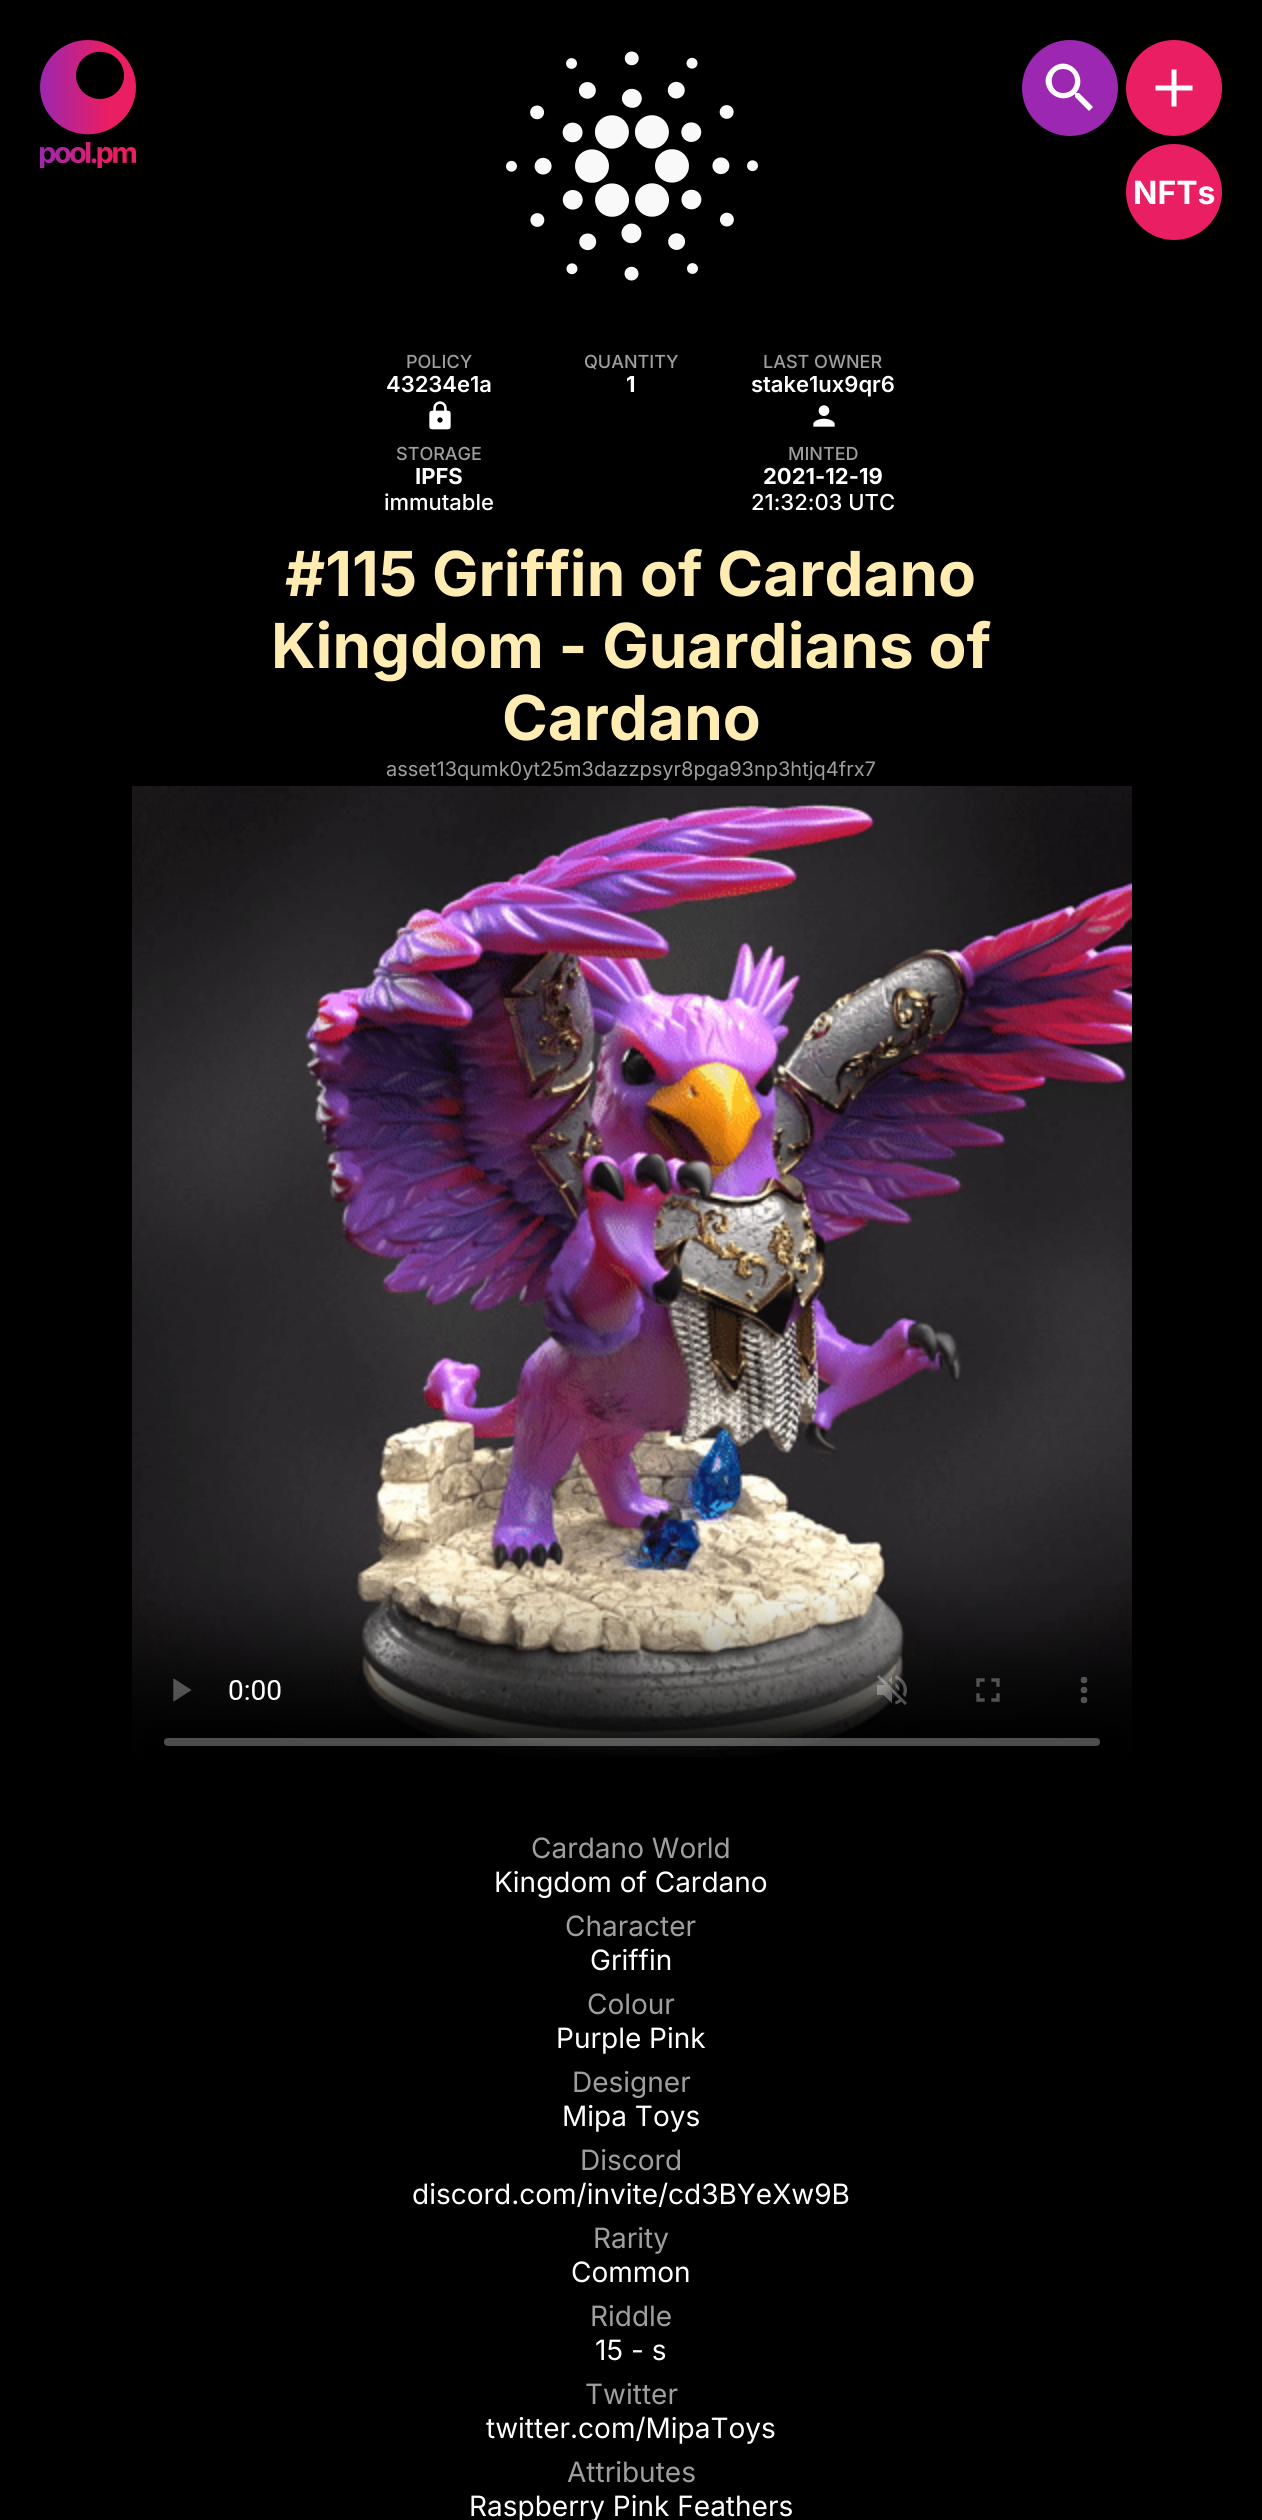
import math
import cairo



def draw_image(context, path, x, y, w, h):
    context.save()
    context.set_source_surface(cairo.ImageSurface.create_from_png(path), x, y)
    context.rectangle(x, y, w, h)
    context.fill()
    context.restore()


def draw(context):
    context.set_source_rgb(0, 0, 0)
    context.paint()
    draw_image(context, "images/1.png", 40, 40, 96, 128)
    context.set_source_rgb(156 / 255, 39 / 255, 176 / 255)
    context.arc(1070, 88, 48, 0, 2 * math.pi)
    context.fill()
    context.set_source_rgb(1, 1, 1)
    context.new_path()
    context.move_to(1079, 93)
    context.line_to(1077, 93)
    context.line_to(1076, 93)
    context.curve_to(1090, 76, 1067, 53, 1051, 69)
    context.curve_to(1035, 85, 1058, 108, 1075, 94)
    context.line_to(1075, 95)
    context.line_to(1075, 97)
    context.line_to(1089, 111)
    context.line_to(1093, 107)
    context.close_path()
    context.move_to(1063, 93)
    context.curve_to(1048, 93, 1048, 69, 1063, 69)
    context.curve_to(1079, 69, 1079, 93, 1063, 93)
    context.close_path()
    context.fill()
    context.set_source_rgb(233 / 255, 30 / 255, 99 / 255)
    context.arc(1174, 88, 48, 0, 2 * math.pi)
    context.fill()
    context.set_source_rgb(1, 1, 1)
    context.new_path()
    context.move_to(1192.5, 90.5)
    context.line_to(1176.5, 90.5)
    context.line_to(1176.5, 106.5)
    context.line_to(1171.5, 106.5)
    context.line_to(1171.5, 90.5)
    context.line_to(1155.5, 90.5)
    context.line_to(1155.5, 85.5)
    context.line_to(1171.5, 85.5)
    context.line_to(1171.5, 69.5)
    context.line_to(1176.5, 69.5)
    context.line_to(1176.5, 85.5)
    context.line_to(1192.5, 85.5)
    context.close_path()
    context.fill()
    context.set_source_rgb(233 / 255, 30 / 255, 99 / 255)
    context.arc(1174, 192, 48, 0, 2 * math.pi)
    context.fill()
    draw_image(context, "images/2.png", 506, 51, 252, 230)
    draw_image(context, "images/3.png", 429, 401, 22, 29)
    draw_image(context, "images/4.png", 813, 405, 22, 22)
    draw_image(context, "images/5.png", 132, 786, 1000, 971)
    context.select_font_face("Inter", cairo.FontSlant.NORMAL, cairo.FontWeight.BOLD)
    context.set_font_size(32)
    context.set_source_rgb(1, 1, 1)
    context.move_to(1133, 204)
    context.show_text("NFTs")
    context.select_font_face("Inter Medium")
    context.set_font_size(18)
    context.set_source_rgb(158 / 255, 158 / 255, 158 / 255)
    context.move_to(406, 368)
    context.show_text("POLICY")
    context.select_font_face("Inter SemiBold")
    context.set_font_size(22)
    context.set_source_rgb(1, 1, 1)
    context.move_to(386, 392)
    context.show_text("43234e1a")
    context.select_font_face("Inter Medium")
    context.set_font_size(18)
    context.set_source_rgb(158 / 255, 158 / 255, 158 / 255)
    context.move_to(584, 368)
    context.show_text("QUANTITY")
    context.select_font_face("Inter", cairo.FontSlant.NORMAL, cairo.FontWeight.BOLD)
    context.set_font_size(22)
    context.set_source_rgb(1, 1, 1)
    context.move_to(626, 392)
    context.show_text("1")
    context.select_font_face("Inter Medium")
    context.set_font_size(18)
    context.set_source_rgb(158 / 255, 158 / 255, 158 / 255)
    context.move_to(763, 368)
    context.show_text("LAST OWNER")
    context.select_font_face("Inter SemiBold")
    context.set_font_size(22)
    context.set_source_rgb(1, 1, 1)
    context.move_to(751, 392)
    context.show_text("stake1ux9qr6")
    context.select_font_face("Inter Medium")
    context.set_font_size(18)
    context.set_source_rgb(158 / 255, 158 / 255, 158 / 255)
    context.move_to(396, 460)
    context.show_text("STORAGE")
    context.select_font_face("Inter", cairo.FontSlant.NORMAL, cairo.FontWeight.BOLD)
    context.set_font_size(22)
    context.set_source_rgb(1, 1, 1)
    context.move_to(415, 484)
    context.show_text("IPFS")
    context.select_font_face("Inter Medium")
    context.move_to(384, 510)
    context.show_text("immutable")
    context.set_font_size(18)
    context.set_source_rgb(158 / 255, 158 / 255, 158 / 255)
    context.move_to(788, 460)
    context.show_text("MINTED")
    context.select_font_face("Inter", cairo.FontSlant.NORMAL, cairo.FontWeight.BOLD)
    context.set_font_size(22)
    context.set_source_rgb(1, 1, 1)
    context.move_to(763, 484)
    context.show_text("2021-12-19")
    context.select_font_face("Inter Medium")
    context.move_to(751, 510)
    context.show_text("21:32:03 UTC")
    context.select_font_face("Inter", cairo.FontSlant.NORMAL, cairo.FontWeight.BOLD)
    context.set_font_size(62)
    context.set_source_rgb(1, 236 / 255, 179 / 255)
    context.move_to(285, 596)
    context.show_text("#115 Griffin of Cardano")
    context.move_to(271, 668)
    context.show_text("Kingdom - Guardians of")
    context.move_to(502, 740)
    context.show_text("Cardano")
    context.select_font_face("Inter")
    context.set_font_size(20)
    context.set_source_rgb(158 / 255, 158 / 255, 158 / 255)
    context.move_to(386, 776)
    context.show_text("asset13qumk0yt25m3dazzpsyr8pga93np3htjq4frx7")
    context.set_font_size(28)
    context.move_to(531, 1858)
    context.show_text("Cardano World")
    context.set_source_rgb(1, 1, 1)
    context.move_to(494, 1892)
    context.show_text("Kingdom of Cardano")
    context.set_source_rgb(158 / 255, 158 / 255, 158 / 255)
    context.move_to(565, 1936)
    context.show_text("Character")
    context.set_source_rgb(1, 1, 1)
    context.move_to(590, 1970)
    context.show_text("Griffin")
    context.set_source_rgb(158 / 255, 158 / 255, 158 / 255)
    context.move_to(587, 2014)
    context.show_text("Colour")
    context.set_source_rgb(1, 1, 1)
    context.move_to(556, 2048)
    context.show_text("Purple Pink")
    context.set_source_rgb(158 / 255, 158 / 255, 158 / 255)
    context.move_to(572, 2092)
    context.show_text("Designer")
    context.set_source_rgb(1, 1, 1)
    context.move_to(562, 2126)
    context.show_text("Mipa Toys")
    context.set_source_rgb(158 / 255, 158 / 255, 158 / 255)
    context.move_to(580, 2170)
    context.show_text("Discord")
    context.set_source_rgb(1, 1, 1)
    context.move_to(412, 2204)
    context.show_text("discord.com/invite/cd3BYeXw9B")
    context.set_source_rgb(158 / 255, 158 / 255, 158 / 255)
    context.move_to(593, 2248)
    context.show_text("Rarity")
    context.set_source_rgb(1, 1, 1)
    context.move_to(571, 2282)
    context.show_text("Common")
    context.set_source_rgb(158 / 255, 158 / 255, 158 / 255)
    context.move_to(590, 2326)
    context.show_text("Riddle")
    context.set_source_rgb(1, 1, 1)
    context.move_to(595, 2360)
    context.show_text("15 - s")
    context.set_source_rgb(158 / 255, 158 / 255, 158 / 255)
    context.move_to(585, 2404)
    context.show_text("Twitter")
    context.set_source_rgb(1, 1, 1)
    context.move_to(486, 2438)
    context.show_text("twitter.com/MipaToys")
    context.set_source_rgb(158 / 255, 158 / 255, 158 / 255)
    context.move_to(567, 2482)
    context.show_text("Attributes")
    context.set_source_rgb(1, 1, 1)
    context.move_to(469, 2516)
    context.show_text("Raspberry Pink Feathers")


surface = cairo.ImageSurface(cairo.Format.RGB24, 1262, 2520)
context = cairo.Context(surface)
options = cairo.FontOptions()
options.set_hint_metrics(cairo.HintMetrics.OFF)
options.set_hint_style(cairo.HintStyle.NONE)
context.set_font_options(options)
context.set_miter_limit(4)
draw(context)
surface.write_to_png("out.png")
